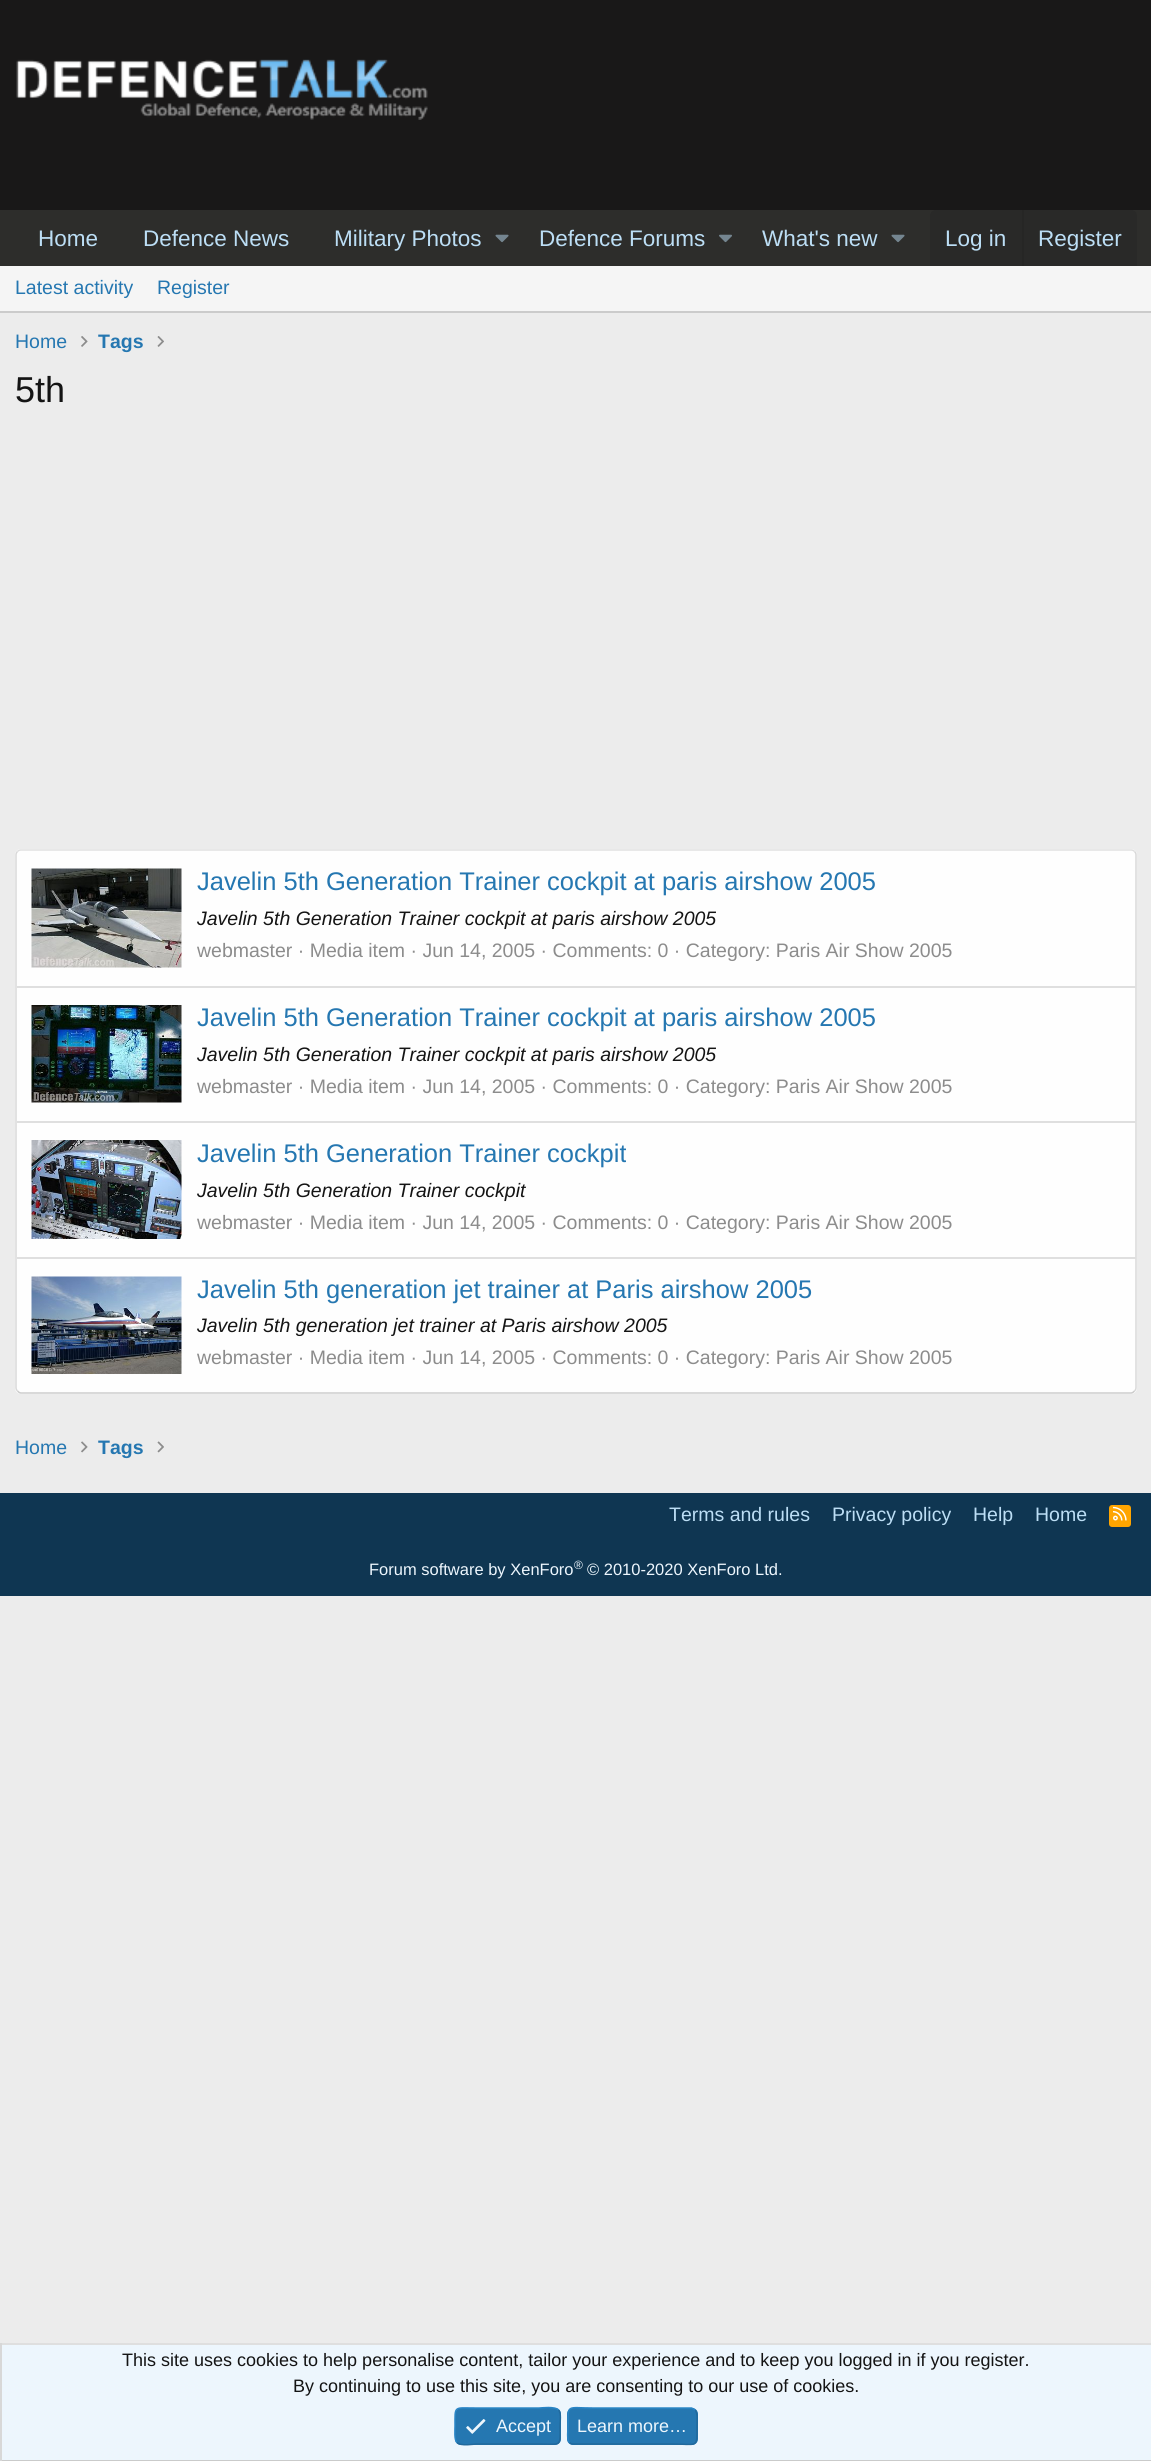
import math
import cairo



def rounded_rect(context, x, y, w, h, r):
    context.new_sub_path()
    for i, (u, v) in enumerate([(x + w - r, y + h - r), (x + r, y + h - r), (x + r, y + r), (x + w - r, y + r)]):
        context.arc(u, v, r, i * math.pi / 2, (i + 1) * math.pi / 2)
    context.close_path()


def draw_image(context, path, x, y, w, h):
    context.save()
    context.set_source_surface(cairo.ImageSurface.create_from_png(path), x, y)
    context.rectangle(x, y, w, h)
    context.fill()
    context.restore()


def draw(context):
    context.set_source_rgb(236 / 255, 236 / 255, 236 / 255)
    context.paint()
    context.set_source_rgb(25 / 255, 24 / 255, 24 / 255)
    context.rectangle(0, 0, 1151, 210)
    context.fill()
    draw_image(context, "images/1.png", 16, 59, 412, 61)
    context.set_source_rgb(45 / 255, 45 / 255, 43 / 255)
    context.rectangle(0, 210, 1151, 56)
    context.fill()
    draw_image(context, "images/2.png", 495, 234, 14, 9)
    draw_image(context, "images/3.png", 719, 234, 13, 9)
    draw_image(context, "images/2.png", 891, 234, 14, 9)
    context.set_source_rgb(41 / 255, 41 / 255, 40 / 255)
    context.new_path()
    context.move_to(936, 210)
    context.line_to(1131, 210)
    context.curve_to(1134.5, 210, 1137, 212.5, 1137, 216)
    context.line_to(1137, 266)
    context.line_to(930, 266)
    context.line_to(930, 216)
    context.curve_to(930, 212.5, 932.5, 210, 936, 210)
    context.close_path()
    context.fill()
    context.set_source_rgb(38 / 255, 38 / 255, 37 / 255)
    context.rectangle(1022, 210, 2, 56)
    context.fill()
    context.set_source_rgb(245 / 255, 245 / 255, 245 / 255)
    context.rectangle(0, 266, 1151, 45)
    context.fill()
    context.set_source_rgb(203 / 255, 203 / 255, 203 / 255)
    context.rectangle(0, 311, 1151, 2)
    context.fill()
    draw_image(context, "images/4.png", 81, 336, 7, 11)
    draw_image(context, "images/5.png", 157, 336, 7, 11)
    context.set_source_rgb(254 / 255, 254 / 255, 254 / 255)
    rounded_rect(context, 15, 849, 1122, 545, 6)
    context.fill()
    context.new_path()
    context.move_to(17.5, 851.5)
    context.curve_to(18.5, 850.5, 19.5, 850, 21, 850)
    context.line_to(1131, 850)
    context.curve_to(1132.5, 850, 1133.5, 850.5, 1134.5, 851.5)
    context.set_source_rgb(223 / 255, 223 / 255, 223 / 255)
    context.set_line_width(1.5)
    context.stroke()
    context.new_path()
    context.move_to(1134.5, 851.5)
    context.curve_to(1135.5, 852.5, 1136, 853.5, 1136, 855)
    context.line_to(1136, 1387.5)
    context.curve_to(1136, 1389, 1135.5, 1390, 1134.5, 1391)
    context.set_source_rgb(216 / 255, 216 / 255, 216 / 255)
    context.stroke()
    context.new_path()
    context.move_to(1134.5, 1391)
    context.curve_to(1133.5, 1392, 1132.5, 1393, 1131, 1393)
    context.line_to(21, 1393)
    context.curve_to(19.5, 1393, 18.5, 1392, 17.5, 1391)
    context.set_source_rgb(203 / 255, 203 / 255, 203 / 255)
    context.stroke()
    context.new_path()
    context.move_to(17.5, 1391)
    context.curve_to(16.5, 1390, 16, 1389, 16, 1387.5)
    context.line_to(16, 855)
    context.curve_to(16, 853.5, 16.5, 852.5, 17.5, 851.5)
    context.set_source_rgb(216 / 255, 216 / 255, 216 / 255)
    context.stroke()
    draw_image(context, "images/6.png", 31, 868, 151, 100)
    context.set_source_rgb(223 / 255, 223 / 255, 223 / 255)
    context.rectangle(17, 986, 1119, 2)
    context.fill()
    draw_image(context, "images/7.png", 31, 1005, 151, 98)
    context.rectangle(17, 1121, 1119, 2)
    context.fill()
    draw_image(context, "images/8.png", 31, 1140, 151, 99)
    context.rectangle(17, 1257, 1119, 2)
    context.fill()
    draw_image(context, "images/9.png", 31, 1276, 151, 98)
    draw_image(context, "images/10.png", 81, 1441, 7, 12)
    draw_image(context, "images/11.png", 157, 1441, 7, 12)
    context.set_source_rgb(15 / 255, 54 / 255, 82 / 255)
    context.rectangle(0, 1493, 1151, 103)
    context.fill()
    context.set_source_rgb(1, 165 / 255, 0)
    rounded_rect(context, 1109, 1505, 22, 22, 3)
    context.fill()
    draw_image(context, "images/12.png", 1113, 1506, 14, 15)
    context.set_source_rgb(237 / 255, 246 / 255, 253 / 255)
    context.rectangle(2, 2345, 1149, 115)
    context.fill()
    context.set_source_rgb(223 / 255, 223 / 255, 223 / 255)
    context.rectangle(0, 2343, 1151, 2)
    context.fill()
    context.set_source_rgb(203 / 255, 203 / 255, 203 / 255)
    context.rectangle(0, 2460, 1151, 1)
    context.fill()
    context.set_source_rgb(216 / 255, 216 / 255, 216 / 255)
    context.rectangle(0, 2343, 2, 118)
    context.fill()
    context.set_source_rgb(37 / 255, 119 / 255, 177 / 255)
    rounded_rect(context, 455, 2408, 106, 37, 6)
    context.fill()
    context.new_path()
    context.move_to(558.5, 2410)
    context.curve_to(561.5, 2412.5, 560, 2422.5, 560, 2426)
    context.curve_to(560, 2447.5, 562, 2444, 539, 2444)
    context.line_to(476, 2444)
    context.curve_to(474.5, 2444, 460.5, 2446.5, 457, 2442.5)
    context.set_source_rgb(33 / 255, 105 / 255, 156 / 255)
    context.stroke()
    context.new_path()
    context.move_to(457, 2442.5)
    context.curve_to(454, 2440, 455, 2430, 455, 2426)
    context.curve_to(455, 2405, 453.5, 2408, 476, 2408)
    context.line_to(539, 2408)
    context.curve_to(541, 2408, 555, 2406, 558.5, 2410)
    context.set_source_rgb(41 / 255, 133 / 255, 198 / 255)
    context.stroke()
    draw_image(context, "images/13.png", 466, 2419, 20, 15)
    context.set_source_rgb(37 / 255, 119 / 255, 177 / 255)
    rounded_rect(context, 567, 2408, 131, 37, 6)
    context.fill()
    context.new_path()
    context.move_to(695, 2410)
    context.curve_to(698, 2412.5, 697, 2422.5, 697, 2426)
    context.curve_to(697, 2449, 698, 2444, 672, 2444)
    context.line_to(573, 2444)
    context.curve_to(571.5, 2444, 570.5, 2443.5, 569.5, 2442.5)
    context.set_source_rgb(33 / 255, 105 / 255, 156 / 255)
    context.stroke()
    context.new_path()
    context.move_to(569.5, 2442.5)
    context.curve_to(566.5, 2440, 568, 2430, 568, 2426)
    context.curve_to(568, 2403.5, 566.5, 2408, 593, 2408)
    context.line_to(691.5, 2408)
    context.curve_to(693, 2408.5, 694, 2409, 695, 2410)
    context.set_source_rgb(41 / 255, 133 / 255, 198 / 255)
    context.stroke()
    context.select_font_face("Liberation Sans")
    context.set_font_size(22.5)
    context.set_source_rgb(188 / 255, 222 / 255, 245 / 255)
    context.move_to(38, 246)
    context.show_text("Home")
    context.move_to(143, 246)
    context.show_text("Defence News")
    context.move_to(334, 246)
    context.show_text("Military Photos")
    context.move_to(539, 246)
    context.show_text("Defence Forums")
    context.move_to(762, 246)
    context.show_text("What's new")
    context.move_to(945, 246)
    context.show_text("Log in")
    context.move_to(1038, 246)
    context.show_text("Register")
    context.set_font_size(19.5)
    context.set_source_rgb(37 / 255, 119 / 255, 177 / 255)
    context.move_to(15, 294)
    context.show_text("Latest activity")
    context.move_to(157, 294)
    context.show_text("Register")
    context.move_to(15, 348)
    context.show_text("Home")
    context.save()
    context.rectangle(98, 327, 45, 30)
    context.clip()
    context.select_font_face("Liberation Sans", cairo.FontSlant.NORMAL, cairo.FontWeight.BOLD)
    context.move_to(98, 348)
    context.show_text("Tags")
    context.restore()
    context.set_font_size(36)
    context.set_source_rgb(20 / 255, 20 / 255, 20 / 255)
    context.move_to(15, 402)
    context.show_text("5th")
    context.set_font_size(25.5)
    context.set_source_rgb(37 / 255, 119 / 255, 177 / 255)
    context.move_to(197, 890)
    context.show_text("Javelin 5th Generation Trainer cockpit at paris airshow 2005")
    context.select_font_face("Liberation Sans", cairo.FontSlant.ITALIC)
    context.set_font_size(19.5)
    context.set_source_rgb(20 / 255, 20 / 255, 20 / 255)
    context.move_to(197, 925)
    context.show_text("Javelin 5th Generation Trainer cockpit at paris airshow 2005")
    context.select_font_face("Liberation Sans")
    context.set_source_rgb(140 / 255, 140 / 255, 140 / 255)
    context.move_to(197, 957)
    context.show_text("webmaster · Media item · Jun 14, 2005 · Comments: 0 · Category: Paris Air Show 2005")
    context.set_font_size(25.5)
    context.set_source_rgb(37 / 255, 119 / 255, 177 / 255)
    context.move_to(197, 1026)
    context.show_text("Javelin 5th Generation Trainer cockpit at paris airshow 2005")
    context.select_font_face("Liberation Sans", cairo.FontSlant.ITALIC)
    context.set_font_size(19.5)
    context.set_source_rgb(20 / 255, 20 / 255, 20 / 255)
    context.move_to(197, 1061)
    context.show_text("Javelin 5th Generation Trainer cockpit at paris airshow 2005")
    context.select_font_face("Liberation Sans")
    context.set_source_rgb(140 / 255, 140 / 255, 140 / 255)
    context.move_to(197, 1093)
    context.show_text("webmaster · Media item · Jun 14, 2005 · Comments: 0 · Category: Paris Air Show 2005")
    context.set_font_size(25.5)
    context.set_source_rgb(37 / 255, 119 / 255, 177 / 255)
    context.move_to(197, 1162)
    context.show_text("Javelin 5th Generation Trainer cockpit")
    context.select_font_face("Liberation Sans", cairo.FontSlant.ITALIC)
    context.set_font_size(19.5)
    context.set_source_rgb(20 / 255, 20 / 255, 20 / 255)
    context.move_to(197, 1197)
    context.show_text("Javelin 5th Generation Trainer cockpit")
    context.select_font_face("Liberation Sans")
    context.set_source_rgb(140 / 255, 140 / 255, 140 / 255)
    context.move_to(197, 1229)
    context.show_text("webmaster · Media item · Jun 14, 2005 · Comments: 0 · Category: Paris Air Show 2005")
    context.set_font_size(25.5)
    context.set_source_rgb(37 / 255, 119 / 255, 177 / 255)
    context.move_to(197, 1298)
    context.show_text("Javelin 5th generation jet trainer at Paris airshow 2005")
    context.select_font_face("Liberation Sans", cairo.FontSlant.ITALIC)
    context.set_font_size(19.5)
    context.set_source_rgb(20 / 255, 20 / 255, 20 / 255)
    context.move_to(197, 1332)
    context.show_text("Javelin 5th generation jet trainer at Paris airshow 2005")
    context.select_font_face("Liberation Sans")
    context.set_source_rgb(140 / 255, 140 / 255, 140 / 255)
    context.move_to(197, 1364)
    context.show_text("webmaster · Media item · Jun 14, 2005 · Comments: 0 · Category: Paris Air Show 2005")
    context.set_source_rgb(37 / 255, 119 / 255, 177 / 255)
    context.move_to(15, 1454)
    context.show_text("Home")
    context.save()
    context.rectangle(98, 1433, 45, 30)
    context.clip()
    context.select_font_face("Liberation Sans", cairo.FontSlant.NORMAL, cairo.FontWeight.BOLD)
    context.move_to(98, 1454)
    context.show_text("Tags")
    context.restore()
    context.set_source_rgb(188 / 255, 222 / 255, 245 / 255)
    context.move_to(669, 1521)
    context.show_text("Terms and rules")
    context.move_to(832, 1521)
    context.show_text("Privacy policy")
    context.move_to(973, 1521)
    context.show_text("Help")
    context.move_to(1035, 1521)
    context.show_text("Home")
    context.set_font_size(16.5)
    context.set_source_rgb(237 / 255, 246 / 255, 253 / 255)
    context.move_to(369, 1575)
    context.show_text("Forum software by XenForo")
    context.set_font_size(12)
    context.move_to(574, 1569)
    context.show_text("®")
    context.set_font_size(16.5)
    context.move_to(587, 1575)
    context.show_text("© 2010-2020 XenForo Ltd.")
    context.set_font_size(18)
    context.set_source_rgb(20 / 255, 20 / 255, 20 / 255)
    context.move_to(122, 2366)
    context.show_text("This site uses cookies to help personalise content, tailor your experience and to keep you logged in if you register.")
    context.move_to(293, 2392)
    context.show_text("By continuing to use this site, you are consenting to our use of cookies.")
    context.set_source_rgb(237 / 255, 246 / 255, 253 / 255)
    context.move_to(496, 2432)
    context.show_text("Accept")
    context.move_to(577, 2432)
    context.show_text("Learn more…")


surface = cairo.ImageSurface(cairo.Format.RGB24, 1151, 2461)
context = cairo.Context(surface)
options = cairo.FontOptions()
options.set_hint_metrics(cairo.HintMetrics.OFF)
options.set_hint_style(cairo.HintStyle.NONE)
context.set_font_options(options)
context.set_miter_limit(4)
draw(context)
surface.write_to_png("out.png")
